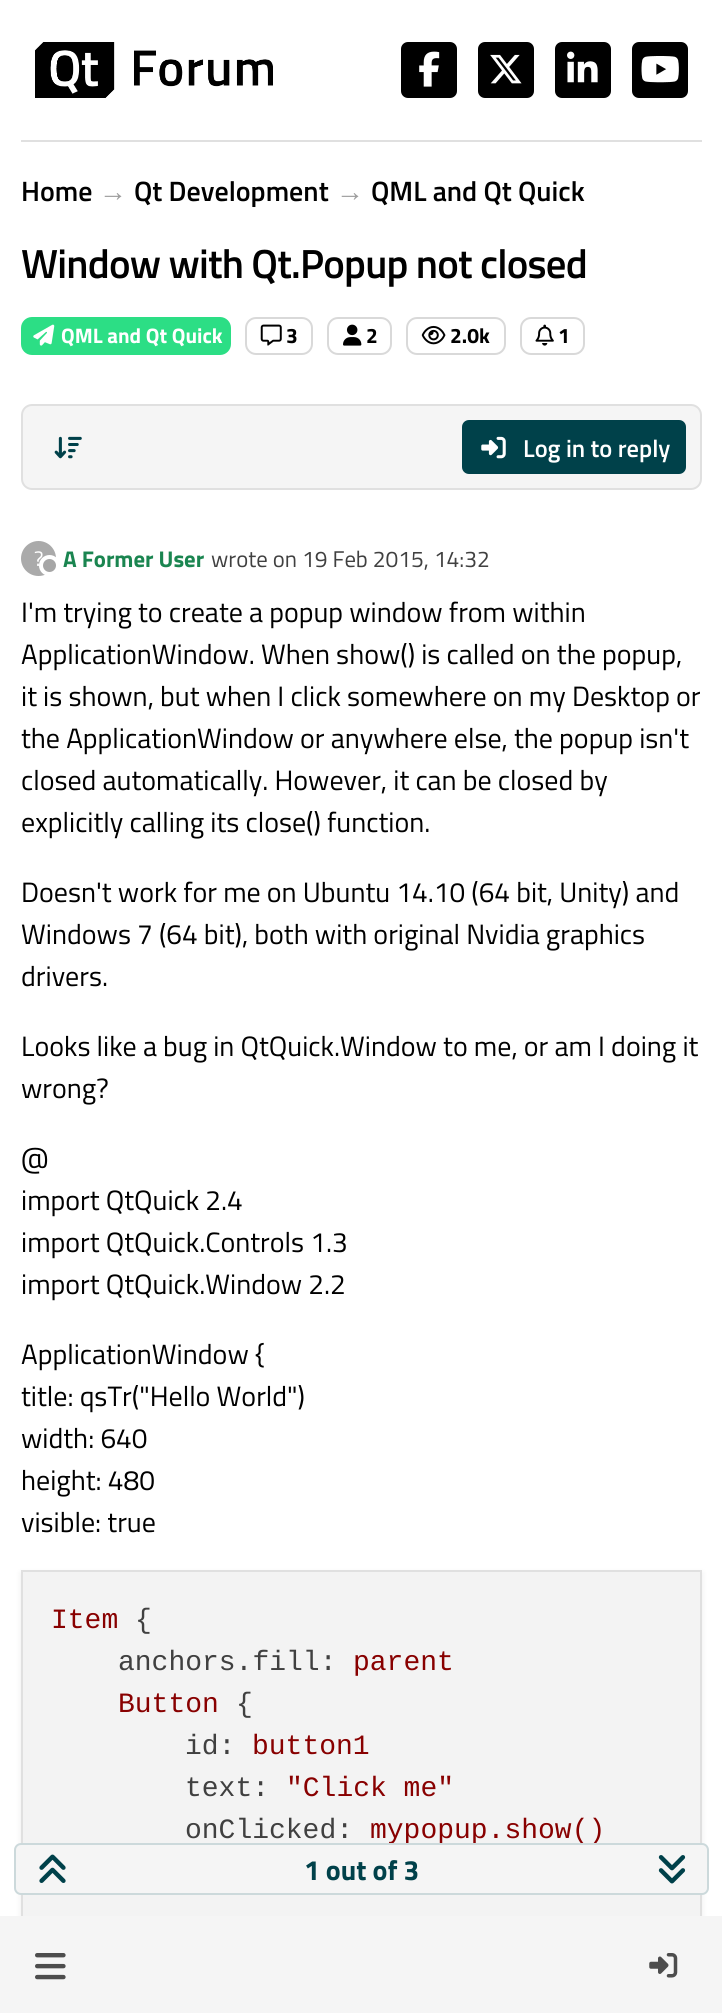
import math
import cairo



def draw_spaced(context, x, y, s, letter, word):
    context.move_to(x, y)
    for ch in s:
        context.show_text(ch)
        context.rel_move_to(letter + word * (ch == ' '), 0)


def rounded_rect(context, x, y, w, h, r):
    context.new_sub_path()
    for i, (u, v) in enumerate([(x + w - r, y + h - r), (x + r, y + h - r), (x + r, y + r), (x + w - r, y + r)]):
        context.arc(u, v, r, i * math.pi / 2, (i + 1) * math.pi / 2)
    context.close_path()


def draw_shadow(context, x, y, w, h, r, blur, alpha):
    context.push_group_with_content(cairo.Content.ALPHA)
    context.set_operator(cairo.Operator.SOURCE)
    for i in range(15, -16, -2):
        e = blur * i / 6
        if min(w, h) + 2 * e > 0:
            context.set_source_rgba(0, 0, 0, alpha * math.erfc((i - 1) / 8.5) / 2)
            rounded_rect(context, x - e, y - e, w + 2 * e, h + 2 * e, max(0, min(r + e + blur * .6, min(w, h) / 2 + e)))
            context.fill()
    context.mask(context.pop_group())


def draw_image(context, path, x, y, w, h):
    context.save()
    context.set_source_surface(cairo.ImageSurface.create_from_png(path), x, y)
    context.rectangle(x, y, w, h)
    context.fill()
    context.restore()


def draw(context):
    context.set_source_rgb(1, 1, 1)
    context.paint()
    context.set_source_rgb(224 / 255, 224 / 255, 224 / 255)
    context.rectangle(21, 140, 681, 2)
    context.fill()
    draw_image(context, "images/1.png", 35, 42, 238, 56)
    context.set_source_rgb(0, 0, 0)
    rounded_rect(context, 401, 42, 56, 56, 7)
    context.fill()
    draw_image(context, "images/2.png", 419, 51, 21, 36)
    rounded_rect(context, 478, 42, 56, 56, 7)
    context.fill()
    draw_image(context, "images/3.png", 490, 54, 32, 30)
    rounded_rect(context, 555, 42, 56, 56, 7)
    context.fill()
    draw_image(context, "images/4.png", 567, 51, 31, 32)
    rounded_rect(context, 632, 42, 56, 56, 7)
    context.fill()
    draw_image(context, "images/5.png", 641, 56, 38, 27)
    context.set_source_rgb(44 / 255, 222 / 255, 133 / 255)
    rounded_rect(context, 22, 318, 208, 36, 10)
    context.fill_preserve()
    context.stroke()
    draw_image(context, "images/6.png", 33, 324, 22, 22)
    rounded_rect(context, 246, 318, 66, 36, 10)
    context.set_source_rgb(217 / 255, 217 / 255, 217 / 255)
    context.stroke()
    draw_image(context, "images/7.png", 260, 324, 22, 22)
    rounded_rect(context, 328, 318, 63, 36, 10)
    context.stroke()
    draw_image(context, "images/8.png", 343, 324, 19, 22)
    rounded_rect(context, 407, 318, 98, 36, 10)
    context.stroke()
    draw_image(context, "images/9.png", 421, 325, 25, 20)
    rounded_rect(context, 521, 318, 63, 36, 10)
    context.stroke()
    draw_image(context, "images/10.png", 535, 324, 19, 22)
    context.set_source_rgb(245 / 255, 245 / 255, 245 / 255)
    rounded_rect(context, 22, 405, 679, 84, 10)
    context.fill_preserve()
    context.set_source_rgb(224 / 255, 224 / 255, 224 / 255)
    context.stroke()
    draw_image(context, "images/11.png", 54, 436, 28, 23)
    context.set_source_rgb(0, 65 / 255, 74 / 255)
    rounded_rect(context, 463, 421, 222, 52, 6)
    context.fill_preserve()
    context.stroke()
    draw_image(context, "images/12.png", 481, 436, 25, 23)
    context.set_source_rgb(170 / 255, 170 / 255, 170 / 255)
    context.arc(38.5, 558.5, 17.5, 0, 2 * math.pi)
    context.fill()
    context.set_source_rgb(0, 0, 0)
    draw_shadow(context, 21, 1573, 681, 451, 0, 3.5, 0.07)
    context.rectangle(22, 1571, 679, 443)
    context.set_source_rgb(224 / 255, 224 / 255, 224 / 255)
    context.stroke()
    context.set_source_rgb(243 / 255, 243 / 255, 243 / 255)
    context.rectangle(23, 1572, 677, 344)
    context.fill()
    context.set_source_rgb(245 / 255, 245 / 255, 245 / 255)
    context.rectangle(0, 1916, 722, 97)
    context.fill()
    draw_image(context, "images/15.png", 35, 1953, 31, 27)
    draw_image(context, "images/16.png", 649, 1953, 29, 25)
    context.select_font_face("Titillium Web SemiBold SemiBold")
    context.set_font_size(28)
    context.set_source_rgb(0, 0, 0)
    context.move_to(21, 201)
    context.show_text("Home")
    context.select_font_face("Liberation Sans", cairo.FontSlant.NORMAL, cairo.FontWeight.BOLD)
    context.set_source_rgb(158 / 255, 158 / 255, 158 / 255)
    context.move_to(99, 201)
    context.show_text("→")
    context.select_font_face("Titillium Web SemiBold SemiBold")
    context.set_source_rgb(0, 0, 0)
    context.move_to(134, 201)
    context.show_text("Qt Development")
    context.select_font_face("Liberation Sans", cairo.FontSlant.NORMAL, cairo.FontWeight.BOLD)
    context.set_source_rgb(158 / 255, 158 / 255, 158 / 255)
    context.move_to(336, 201)
    context.show_text("→")
    context.select_font_face("Titillium Web SemiBold SemiBold")
    context.set_source_rgb(0, 0, 0)
    context.move_to(371, 201)
    context.show_text("QML and Qt Quick")
    context.set_font_size(40.75)
    draw_spaced(context, 21, 278, "Window with Qt.Popup not closed", -0.8, 0)
    context.select_font_face("Titillium Web", cairo.FontSlant.NORMAL, cairo.FontWeight.BOLD)
    context.set_font_size(21)
    context.set_source_rgb(1, 1, 1)
    context.move_to(61, 343)
    context.show_text("QML and Qt Quick")
    context.set_source_rgb(0, 0, 0)
    context.move_to(286, 343)
    context.show_text("3")
    context.move_to(366, 343)
    context.show_text("2")
    context.move_to(450, 343)
    context.show_text("2.0k")
    context.move_to(558, 343)
    context.show_text("1")
    context.select_font_face("Titillium Web SemiBold SemiBold")
    context.set_font_size(24.5)
    context.set_source_rgb(1, 1, 1)
    context.move_to(523, 457)
    context.show_text("Log in to reply")
    context.select_font_face("Titillium Web")
    context.set_font_size(21)
    context.move_to(34, 566)
    context.show_text("?")
    context.set_source_rgb(166 / 255, 166 / 255, 166 / 255)
    context.new_path()
    context.arc(49.5, 565.5, 8.5, 0, 2 * math.pi)
    context.fill_preserve()
    context.set_source_rgb(1, 1, 1)
    context.set_line_width(4)
    context.stroke()
    context.select_font_face("Titillium Web", cairo.FontSlant.NORMAL, cairo.FontWeight.BOLD)
    context.set_font_size(22.75)
    context.set_source_rgb(26 / 255, 133 / 255, 80 / 255)
    context.move_to(63, 567)
    context.show_text("A Former User")
    context.select_font_face("Titillium Web")
    context.set_source_rgb(64 / 255, 64 / 255, 64 / 255)
    context.move_to(211, 567)
    context.show_text("wrote on 19 Feb 2015, 14:32")
    context.set_font_size(28)
    context.set_source_rgb(0, 0, 0)
    context.move_to(21, 622)
    context.show_text("I'm trying to create a popup window from within")
    context.move_to(21, 664)
    context.show_text("ApplicationWindow. When show() is called on the popup,")
    context.move_to(21, 706)
    context.show_text("it is shown, but when I click somewhere on my Desktop or")
    context.move_to(21, 748)
    context.show_text("the ApplicationWindow or anywhere else, the popup isn't")
    context.move_to(21, 790)
    context.show_text("closed automatically. However, it can be closed by")
    context.move_to(21, 832)
    context.show_text("explicitly calling its close() function.")
    context.move_to(21, 902)
    context.show_text("Doesn't work for me on Ubuntu 14.10 (64 bit, Unity) and")
    context.move_to(21, 944)
    context.show_text("Windows 7 (64 bit), both with original Nvidia graphics")
    context.move_to(21, 986)
    context.show_text("drivers.")
    context.move_to(21, 1056)
    context.show_text("Looks like a bug in QtQuick.Window to me, or am I doing it")
    context.move_to(21, 1098)
    context.show_text("wrong?")
    context.move_to(21, 1168)
    context.show_text("@")
    context.move_to(21, 1210)
    context.show_text("import QtQuick 2.4")
    context.move_to(21, 1252)
    context.show_text("import QtQuick.Controls 1.3")
    context.move_to(21, 1294)
    context.show_text("import QtQuick.Window 2.2")
    context.move_to(21, 1364)
    context.show_text("ApplicationWindow {")
    context.move_to(21, 1406)
    context.show_text("title: qsTr(\"Hello World\")")
    context.move_to(21, 1448)
    context.show_text("width: 640")
    context.move_to(21, 1490)
    context.show_text("height: 480")
    context.move_to(21, 1532)
    context.show_text("visible: true")
    context.select_font_face("Liberation Mono")
    context.set_source_rgb(136 / 255, 0, 0)
    context.move_to(51, 1628)
    context.show_text("Item")
    context.set_source_rgb(64 / 255, 64 / 255, 64 / 255)
    context.move_to(135, 1628)
    context.show_text("{")
    context.move_to(118, 1670)
    context.show_text("anchors.fill:")
    context.set_source_rgb(136 / 255, 0, 0)
    context.move_to(353, 1670)
    context.show_text("parent")
    context.move_to(118, 1712)
    context.show_text("Button")
    context.set_source_rgb(64 / 255, 64 / 255, 64 / 255)
    context.move_to(236, 1712)
    context.show_text("{")
    context.move_to(185, 1754)
    context.show_text("id:")
    context.set_source_rgb(136 / 255, 0, 0)
    context.move_to(252, 1754)
    context.show_text("button1")
    context.set_source_rgb(64 / 255, 64 / 255, 64 / 255)
    context.move_to(185, 1796)
    context.show_text("text:")
    context.set_source_rgb(136 / 255, 0, 0)
    context.move_to(286, 1796)
    context.show_text("\"Click me\"")
    context.set_source_rgb(64 / 255, 64 / 255, 64 / 255)
    context.move_to(185, 1838)
    context.show_text("onClicked:")
    context.set_source_rgb(136 / 255, 0, 0)
    context.move_to(370, 1838)
    context.show_text("mypopup.show()")
    context.set_source_rgb(245 / 255, 245 / 255, 245 / 255)
    rounded_rect(context, 15, 1844, 693, 50, 6)
    context.fill_preserve()
    context.set_source_rgb(204 / 255, 217 / 255, 219 / 255)
    context.set_line_width(2)
    context.stroke()
    draw_image(context, "images/13.png", 39, 1854, 27, 29)
    context.select_font_face("Titillium Web", cairo.FontSlant.NORMAL, cairo.FontWeight.BOLD)
    context.set_source_rgb(0, 65 / 255, 74 / 255)
    context.move_to(304, 1880)
    context.show_text("1 out of 3")
    draw_image(context, "images/14.png", 658, 1855, 28, 29)


surface = cairo.ImageSurface(cairo.Format.RGB24, 722, 2013)
context = cairo.Context(surface)
options = cairo.FontOptions()
options.set_hint_metrics(cairo.HintMetrics.OFF)
options.set_hint_style(cairo.HintStyle.NONE)
context.set_font_options(options)
context.set_miter_limit(4)
draw(context)
surface.write_to_png("out.png")
